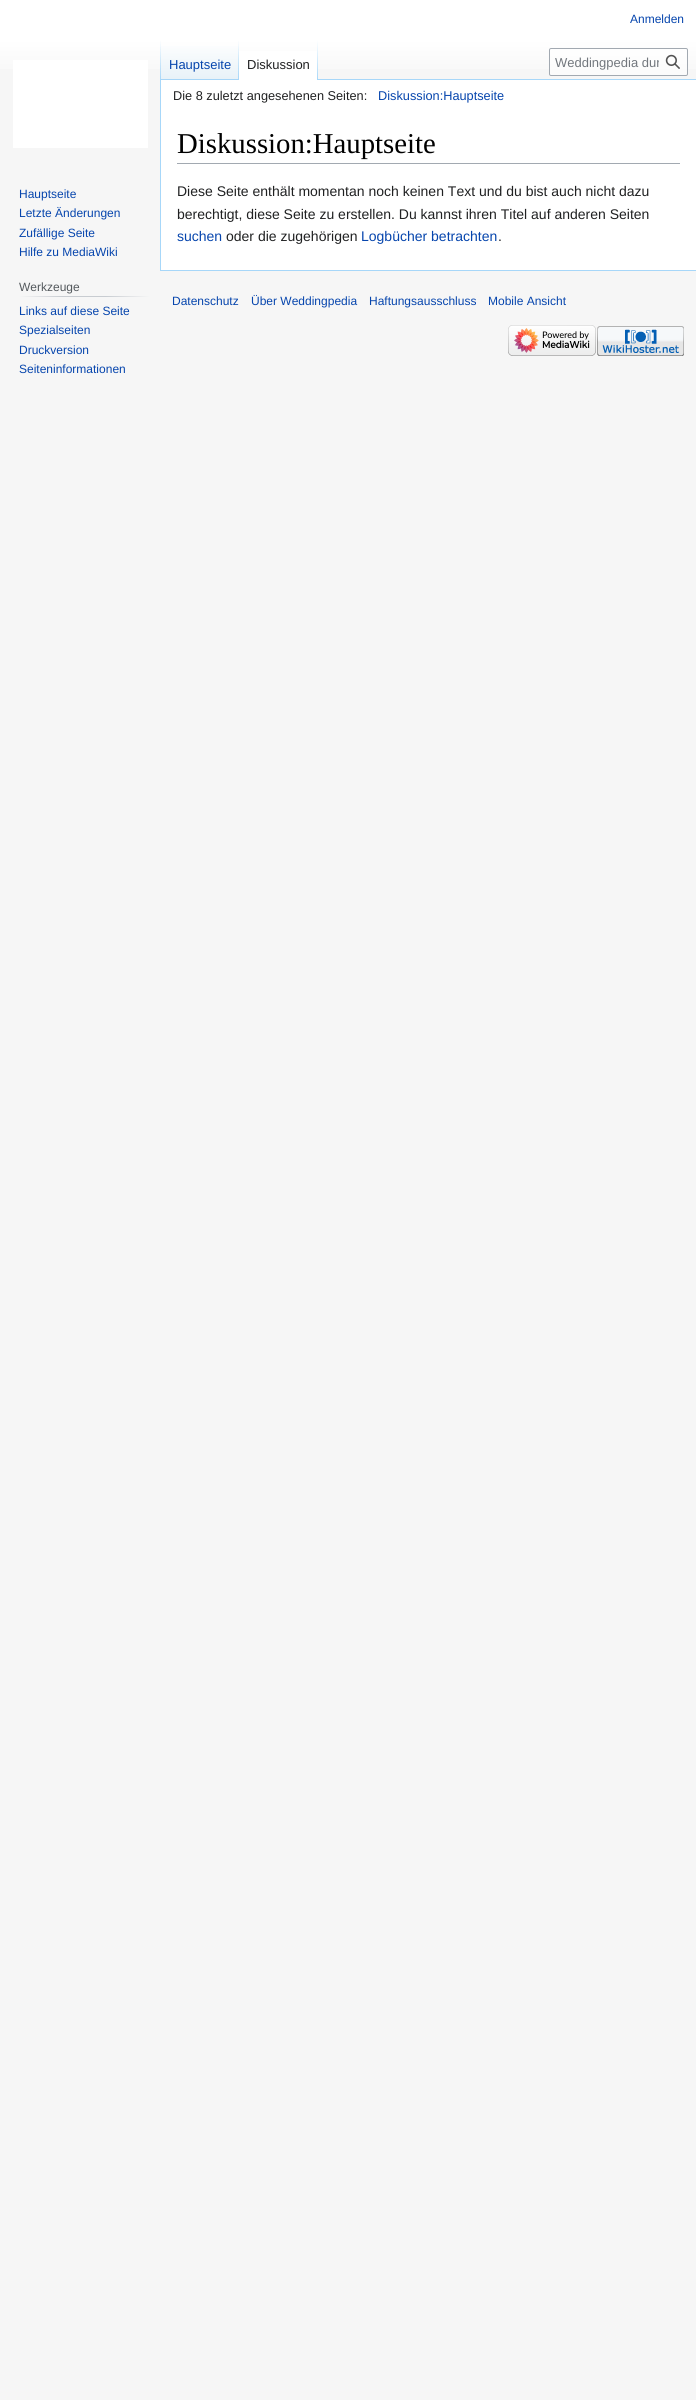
import math
import cairo



def rounded_rect(context, x, y, w, h, r):
    context.new_sub_path()
    for i, (u, v) in enumerate([(x + w - r, y + h - r), (x + r, y + h - r), (x + r, y + r), (x + w - r, y + r)]):
        context.arc(u, v, r, i * math.pi / 2, (i + 1) * math.pi / 2)
    context.close_path()


def draw_image(context, path, x, y, w, h):
    context.save()
    context.set_source_surface(cairo.ImageSurface.create_from_png(path), x, y)
    context.rectangle(x, y, w, h)
    context.fill()
    context.restore()


def draw(context):
    context.set_source_rgb(246 / 255, 246 / 255, 246 / 255)
    context.paint()
    gradient = cairo.LinearGradient(348, 0, 348, 80)
    gradient.add_color_stop_rgba(0.5, 1, 1, 1, 1)
    gradient.add_color_stop_rgba(1, 246 / 255, 246 / 255, 246 / 255, 1)
    context.set_source(gradient)
    context.rectangle(0, 0, 696, 69)
    context.fill()
    context.set_source_rgb(167 / 255, 215 / 255, 249 / 255)
    context.rectangle(160, 270, 536, 1)
    context.fill()
    context.rectangle(160, 79, 1, 192)
    context.fill()
    gradient = cairo.LinearGradient(161, 40, 161, 80)
    gradient.add_color_stop_rgba(0, 167 / 255, 215 / 255, 249 / 255, 0)
    gradient.add_color_stop_rgba(1, 167 / 255, 215 / 255, 249 / 255, 1)
    context.set_source(gradient)
    context.rectangle(160, 40, 1, 40)
    context.fill()
    gradient = cairo.LinearGradient(200, 80, 200, 40)
    gradient.add_color_stop_rgba(0, 119 / 255, 193 / 255, 246 / 255, 1)
    gradient.add_color_stop_rgba(0.03, 232 / 255, 242 / 255, 248 / 255, 1)
    gradient.add_color_stop_rgba(1, 1, 1, 1, 1)
    context.set_source(gradient)
    context.rectangle(161, 46, 78, 34)
    context.fill()
    gradient = cairo.LinearGradient(239, 40, 239, 80)
    gradient.add_color_stop_rgba(0, 167 / 255, 215 / 255, 249 / 255, 0)
    gradient.add_color_stop_rgba(1, 167 / 255, 215 / 255, 249 / 255, 1)
    context.set_source(gradient)
    context.rectangle(238, 40, 1, 40)
    context.fill()
    context.set_source_rgb(1, 1, 1)
    context.rectangle(239, 51, 78, 29)
    context.fill()
    gradient = cairo.LinearGradient(318, 40, 318, 80)
    gradient.add_color_stop_rgba(0, 1, 1, 1, 1)
    gradient.add_color_stop_rgba(1, 167 / 255, 215 / 255, 249 / 255, 1)
    context.set_source(gradient)
    context.rectangle(317, 40, 1, 40)
    context.fill()
    context.set_source_rgba(1, 1, 1, 0.5)
    rounded_rect(context, 549.5, 48.5, 138, 27, 1.5)
    context.fill_preserve()
    context.set_source_rgb(162 / 255, 169 / 255, 177 / 255)
    context.set_line_width(1)
    context.stroke()
    draw_image(context, "images/1.png", 665, 54, 15, 15)
    context.set_source_rgb(1, 1, 1)
    context.rectangle(13, 60, 135, 88)
    context.fill()
    gradient = cairo.LinearGradient(19, 297, 150, 297)
    gradient.add_color_stop_rgba(0, 246 / 255, 246 / 255, 246 / 255, 1)
    gradient.add_color_stop_rgba(0.33, 200 / 255, 204 / 255, 209 / 255, 1)
    gradient.add_color_stop_rgba(0.66, 200 / 255, 204 / 255, 209 / 255, 1)
    gradient.add_color_stop_rgba(1, 246 / 255, 246 / 255, 246 / 255, 1)
    context.set_source(gradient)
    context.rectangle(19, 296, 131, 1)
    context.fill()
    context.set_source_rgb(1, 1, 1)
    context.rectangle(161, 80, 535, 190)
    context.fill()
    context.set_source_rgb(167 / 255, 215 / 255, 249 / 255)
    context.rectangle(318, 79, 378, 1)
    context.fill()
    context.set_source_rgb(162 / 255, 169 / 255, 177 / 255)
    context.rectangle(177, 163, 503, 1)
    context.fill()
    draw_image(context, "images/2.png", 508, 325, 88, 31)
    draw_image(context, "images/3.png", 597, 326, 87, 30)
    context.select_font_face("Liberation Sans")
    context.set_font_size(12)
    context.set_source_rgb(6 / 255, 69 / 255, 173 / 255)
    context.move_to(630, 23)
    context.show_text("Anmelden")
    context.set_font_size(13)
    context.move_to(169, 69)
    context.show_text("Hauptseite")
    context.set_source_rgb(32 / 255, 33 / 255, 34 / 255)
    context.move_to(247, 69)
    context.show_text("Diskussion")
    context.save()
    context.rectangle(555, 55, 104, 15)
    context.clip()
    context.set_source_rgb(114 / 255, 119 / 255, 125 / 255)
    context.move_to(555, 67)
    context.show_text("Weddingpedia dur")
    context.restore()
    context.set_font_size(12)
    context.set_source_rgb(6 / 255, 69 / 255, 173 / 255)
    context.move_to(19, 198)
    context.show_text("Hauptseite")
    context.move_to(19, 217)
    context.show_text("Letzte Änderungen")
    context.move_to(19, 237)
    context.show_text("Zufällige Seite")
    context.move_to(19, 256)
    context.show_text("Hilfe zu MediaWiki")
    context.set_source_rgb(84 / 255, 89 / 255, 93 / 255)
    context.move_to(19, 291)
    context.show_text("Werkzeuge")
    context.set_source_rgb(6 / 255, 69 / 255, 173 / 255)
    context.move_to(19, 315)
    context.show_text("Links auf diese Seite")
    context.move_to(19, 334)
    context.show_text("Spezialseiten")
    context.move_to(19, 354)
    context.show_text("Druckversion")
    context.move_to(19, 373)
    context.show_text("Seiteninformationen")
    context.set_font_size(12.75)
    context.set_source_rgb(32 / 255, 33 / 255, 34 / 255)
    context.move_to(173, 100)
    context.show_text("Die 8 zuletzt angesehenen Seiten:")
    context.set_source_rgb(6 / 255, 69 / 255, 173 / 255)
    context.move_to(378, 100)
    context.show_text("Diskussion:Hauptseite")
    context.select_font_face("Liberation Serif")
    context.set_font_size(28.75)
    context.set_source_rgb(0, 0, 0)
    context.move_to(177, 153)
    context.show_text("Diskussion:Hauptseite")
    context.select_font_face("Liberation Sans")
    context.set_font_size(14)
    context.set_source_rgb(32 / 255, 33 / 255, 34 / 255)
    context.move_to(177, 196)
    context.show_text("Diese Seite enthält momentan noch keinen Text und du bist auch nicht dazu")
    context.move_to(177, 219)
    context.show_text("berechtigt, diese Seite zu erstellen. Du kannst ihren Titel auf anderen Seiten")
    context.set_source_rgb(6 / 255, 69 / 255, 173 / 255)
    context.move_to(177, 241)
    context.show_text("suchen")
    context.set_source_rgb(32 / 255, 33 / 255, 34 / 255)
    context.move_to(226, 241)
    context.show_text("oder die zugehörigen")
    context.set_source_rgb(6 / 255, 69 / 255, 173 / 255)
    context.move_to(361, 241)
    context.show_text("Logbücher betrachten")
    context.set_source_rgb(32 / 255, 33 / 255, 34 / 255)
    context.move_to(498, 241)
    context.show_text(".")
    context.set_font_size(12)
    context.set_source_rgb(6 / 255, 69 / 255, 173 / 255)
    context.move_to(172, 305)
    context.show_text("Datenschutz")
    context.move_to(251, 305)
    context.show_text("Über Weddingpedia")
    context.move_to(369, 305)
    context.show_text("Haftungsausschluss")
    context.move_to(488, 305)
    context.show_text("Mobile Ansicht")


surface = cairo.ImageSurface(cairo.Format.RGB24, 696, 2400)
context = cairo.Context(surface)
options = cairo.FontOptions()
options.set_hint_metrics(cairo.HintMetrics.OFF)
options.set_hint_style(cairo.HintStyle.NONE)
context.set_font_options(options)
context.set_miter_limit(4)
draw(context)
surface.write_to_png("out.png")
